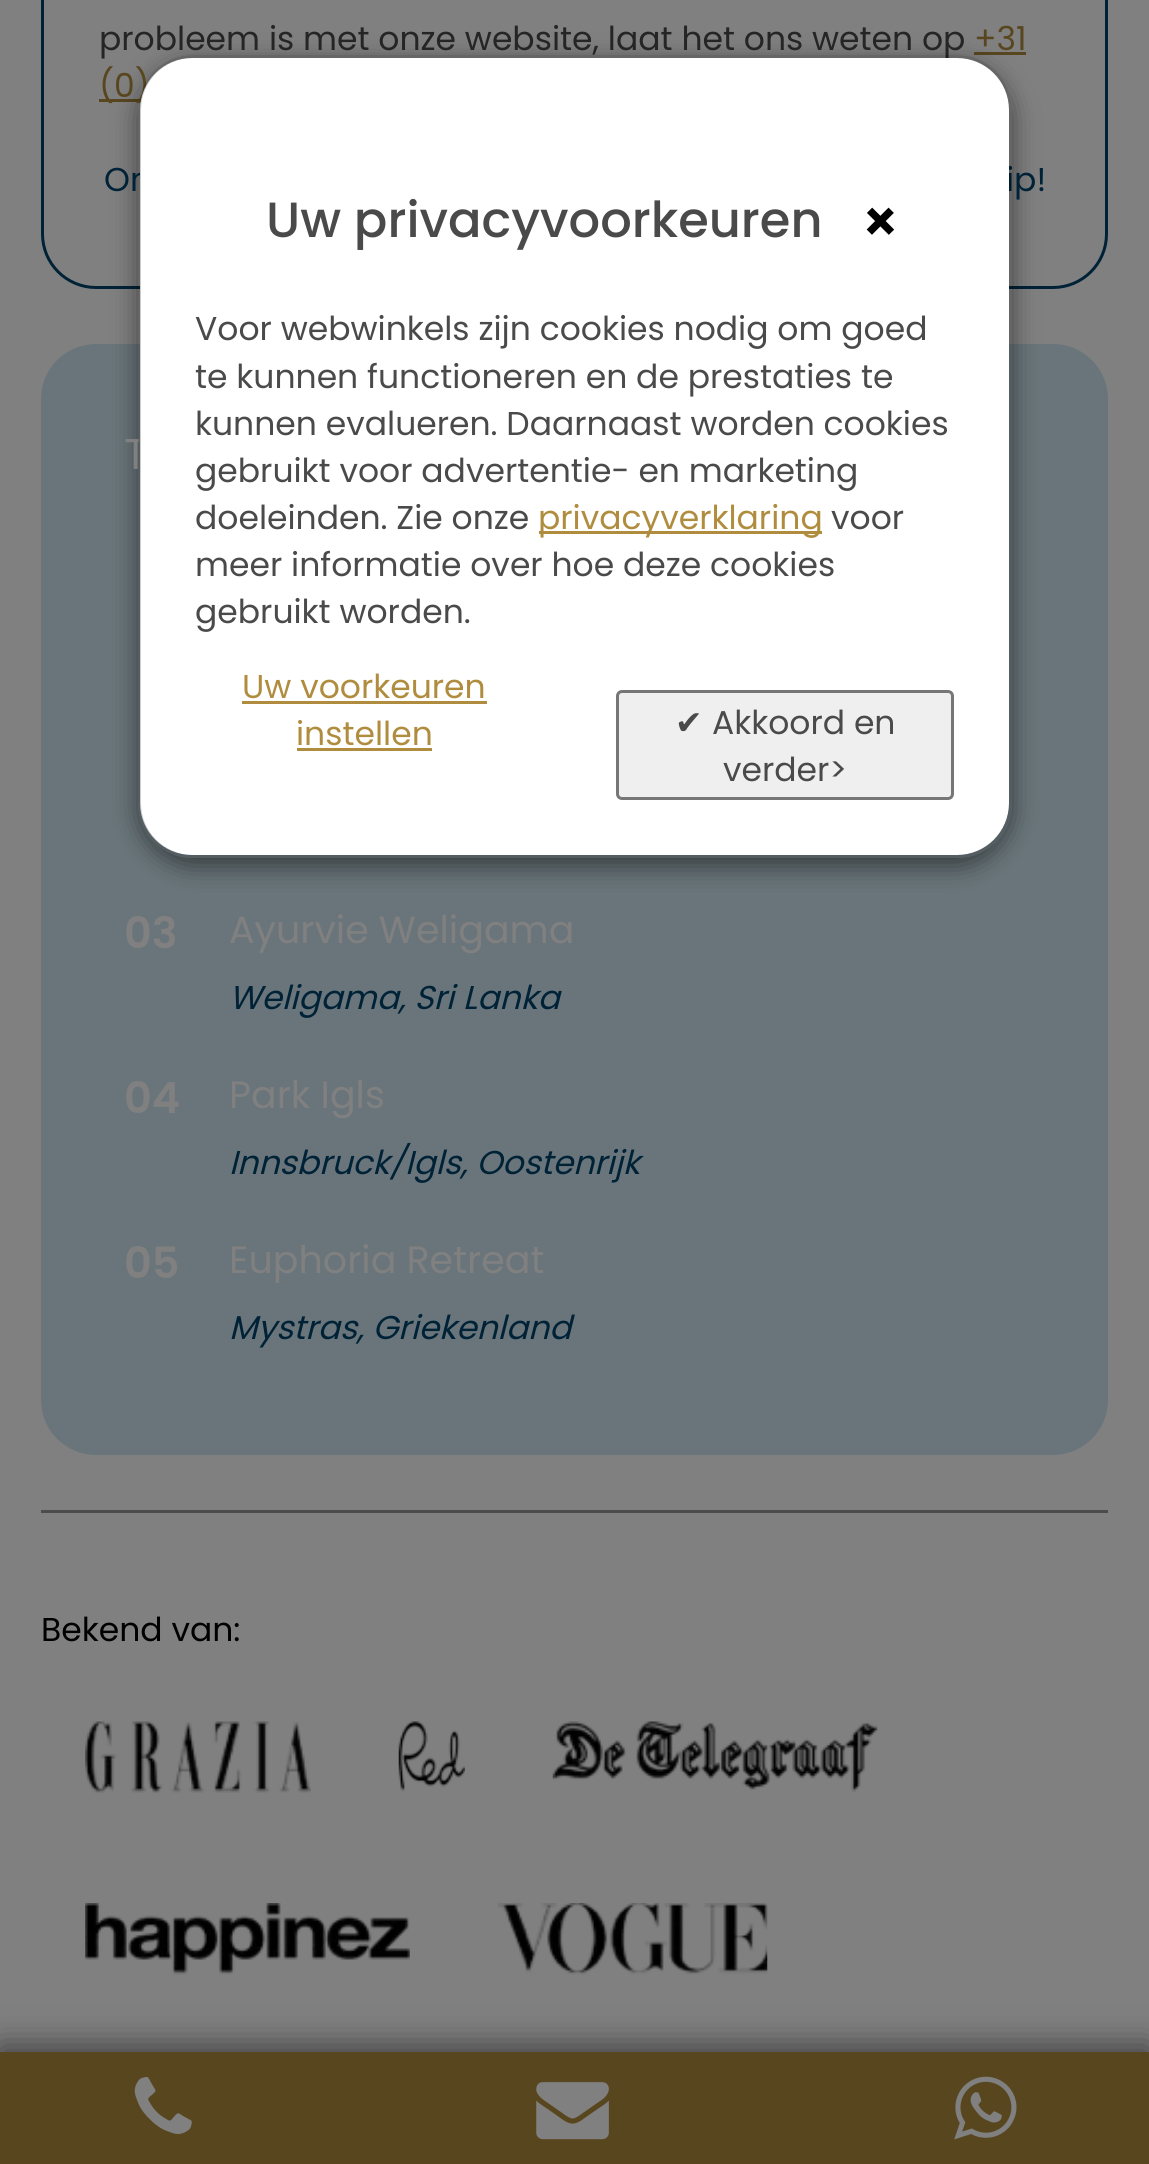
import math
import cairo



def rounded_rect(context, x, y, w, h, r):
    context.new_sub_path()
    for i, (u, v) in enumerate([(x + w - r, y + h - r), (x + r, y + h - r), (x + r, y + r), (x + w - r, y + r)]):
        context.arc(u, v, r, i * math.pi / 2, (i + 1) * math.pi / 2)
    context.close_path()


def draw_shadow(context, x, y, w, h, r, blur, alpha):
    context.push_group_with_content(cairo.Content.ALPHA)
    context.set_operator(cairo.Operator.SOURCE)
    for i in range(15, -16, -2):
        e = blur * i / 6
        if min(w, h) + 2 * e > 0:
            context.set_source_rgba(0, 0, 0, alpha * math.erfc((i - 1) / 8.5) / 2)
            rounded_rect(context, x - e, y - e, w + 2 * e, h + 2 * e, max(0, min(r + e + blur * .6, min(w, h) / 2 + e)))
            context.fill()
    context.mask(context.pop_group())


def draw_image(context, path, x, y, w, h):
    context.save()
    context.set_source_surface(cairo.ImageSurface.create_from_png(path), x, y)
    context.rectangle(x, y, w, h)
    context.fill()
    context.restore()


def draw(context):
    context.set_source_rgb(128 / 255, 128 / 255, 128 / 255)
    context.paint()
    rounded_rect(context, 42.5, -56.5, 1064, 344, 53.5)
    context.set_source_rgb(0, 34 / 255, 55 / 255)
    context.set_line_width(3)
    context.stroke()
    context.set_source_rgb(88 / 255, 70 / 255, 31 / 255)
    context.rectangle(974, 52, 52, 3)
    context.fill()
    context.rectangle(99, 99, 43, 3)
    context.fill()
    context.set_source_rgb(105 / 255, 117 / 255, 122 / 255)
    rounded_rect(context, 41, 344, 1067, 1111, 55)
    context.fill()
    context.set_source_rgb(76 / 255, 76 / 255, 76 / 255)
    context.rectangle(41, 1510, 1067, 3)
    context.fill()
    draw_image(context, "images/1.png", 85, 1721, 226, 72)
    draw_image(context, "images/2.png", 398, 1721, 67, 71)
    draw_image(context, "images/3.png", 552, 1721, 326, 72)
    draw_image(context, "images/4.png", 85, 1903, 325, 72)
    draw_image(context, "images/5.png", 497, 1903, 271, 72)
    context.save()
    context.set_fill_rule(cairo.FillRule.EVEN_ODD)
    context.new_path()
    context.move_to(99, 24)
    context.line_to(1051, 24)
    context.line_to(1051, 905)
    context.line_to(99, 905)
    context.close_path()
    context.move_to(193, 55)
    context.line_to(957, 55)
    context.curve_to(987.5, 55, 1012, 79.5, 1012, 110)
    context.line_to(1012, 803)
    context.curve_to(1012, 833.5, 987.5, 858, 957, 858)
    context.line_to(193, 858)
    context.curve_to(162.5, 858, 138, 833.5, 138, 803)
    context.line_to(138, 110)
    context.curve_to(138, 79.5, 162.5, 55, 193, 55)
    context.close_path()
    context.clip()
    context.set_source_rgb(0, 0, 0)
    draw_shadow(context, 138, 63, 874, 803, 55, 12.5, 0.5)
    context.restore()
    context.set_source_rgb(0, 0, 0)
    draw_shadow(context, 0, 2046, 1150, 113, 0, 16.5, 0.5)
    context.set_source_rgb(88 / 255, 70 / 255, 31 / 255)
    context.rectangle(0, 2052, 1149, 112)
    context.fill()
    draw_image(context, "images/6.png", 134, 2077, 58, 57)
    draw_image(context, "images/7.png", 536, 2082, 73, 58)
    draw_image(context, "images/8.png", 954, 2076, 63, 64)
    context.select_font_face("Poppins")
    context.set_font_size(33)
    context.set_source_rgb(37 / 255, 37 / 255, 37 / 255)
    context.move_to(99, 50)
    context.show_text("probleem is met onze website, laat het ons weten op")
    context.set_source_rgb(88 / 255, 70 / 255, 31 / 255)
    context.move_to(974, 50)
    context.show_text("+31")
    context.move_to(99, 97)
    context.show_text("(0)")
    context.set_source_rgb(0, 34 / 255, 55 / 255)
    context.move_to(104, 191)
    context.show_text("On")
    context.move_to(1006, 191)
    context.show_text("ip!")
    context.set_font_size(43)
    context.set_source_rgb(128 / 255, 128 / 255, 128 / 255)
    context.move_to(124, 469)
    context.show_text("T")
    context.select_font_face("Poppins SemiBold")
    context.move_to(124, 948)
    context.show_text("03")
    context.select_font_face("Poppins")
    context.set_font_size(38)
    context.move_to(229, 943)
    context.show_text("Ayurvie Weligama")
    context.select_font_face("Poppins", cairo.FontSlant.ITALIC)
    context.set_font_size(33)
    context.set_source_rgb(0, 34 / 255, 55 / 255)
    context.move_to(229, 1009)
    context.show_text("Weligama, Sri Lanka")
    context.select_font_face("Poppins SemiBold")
    context.set_font_size(43)
    context.set_source_rgb(128 / 255, 128 / 255, 128 / 255)
    context.move_to(124, 1113)
    context.show_text("04")
    context.select_font_face("Poppins")
    context.set_font_size(38)
    context.move_to(229, 1108)
    context.show_text("Park Igls")
    context.select_font_face("Poppins", cairo.FontSlant.ITALIC)
    context.set_font_size(33)
    context.set_source_rgb(0, 34 / 255, 55 / 255)
    context.move_to(229, 1174)
    context.show_text("Innsbruck/Igls, Oostenrijk")
    context.select_font_face("Poppins SemiBold")
    context.set_font_size(43)
    context.set_source_rgb(128 / 255, 128 / 255, 128 / 255)
    context.move_to(124, 1278)
    context.show_text("05")
    context.select_font_face("Poppins")
    context.set_font_size(38)
    context.move_to(229, 1273)
    context.show_text("Euphoria Retreat")
    context.select_font_face("Poppins", cairo.FontSlant.ITALIC)
    context.set_font_size(33)
    context.set_source_rgb(0, 34 / 255, 55 / 255)
    context.move_to(229, 1339)
    context.show_text("Mystras, Griekenland")
    context.select_font_face("Poppins")
    context.set_source_rgb(0, 0, 0)
    context.move_to(41, 1641)
    context.show_text("Bekend van:")
    context.set_source_rgb(1, 1, 1)
    rounded_rect(context, 140, 58, 869, 797, 52)
    context.fill()
    rounded_rect(context, 139.5, 56.5, 871, 800, 53.5)
    context.set_source_rgba(0, 0, 0, 0.2)
    context.stroke()
    context.select_font_face("Poppins Medium")
    context.set_font_size(49.5)
    context.set_source_rgb(74 / 255, 74 / 255, 74 / 255)
    context.move_to(266, 237)
    context.show_text("Uw privacyvoorkeuren")
    context.select_font_face("Poppins SemiBold")
    context.set_font_size(58)
    context.set_source_rgb(0, 0, 0)
    context.move_to(861, 242)
    context.show_text("×")
    context.select_font_face("Poppins")
    context.set_font_size(33)
    context.set_source_rgb(74 / 255, 74 / 255, 74 / 255)
    context.move_to(195, 340)
    context.show_text("Voor webwinkels zijn cookies nodig om goed")
    context.move_to(195, 388)
    context.show_text("te kunnen functioneren en de prestaties te")
    context.move_to(195, 435)
    context.show_text("kunnen evalueren. Daarnaast worden cookies")
    context.move_to(195, 482)
    context.show_text("gebruikt voor advertentie- en marketing")
    context.move_to(195, 529)
    context.show_text("doeleinden. Zie onze")
    context.set_source_rgb(176 / 255, 140 / 255, 62 / 255)
    context.rectangle(539, 531, 283, 3)
    context.fill()
    context.move_to(538, 529)
    context.show_text("privacyverklaring")
    context.set_source_rgb(74 / 255, 74 / 255, 74 / 255)
    context.move_to(831, 529)
    context.show_text("voor")
    context.move_to(195, 576)
    context.show_text("meer informatie over hoe deze cookies")
    context.move_to(195, 623)
    context.show_text("gebruikt worden.")
    context.set_source_rgb(176 / 255, 140 / 255, 62 / 255)
    context.move_to(242, 698)
    context.show_text("Uw voorkeuren")
    context.rectangle(242, 701, 245, 3)
    context.fill()
    context.move_to(296, 745)
    context.show_text("instellen")
    context.rectangle(297, 748, 135, 3)
    context.fill()
    context.set_source_rgb(239 / 255, 239 / 255, 239 / 255)
    rounded_rect(context, 617.5, 691.5, 335, 107, 4.5)
    context.fill_preserve()
    context.set_source_rgb(118 / 255, 118 / 255, 118 / 255)
    context.stroke()
    context.select_font_face("DejaVu Sans")
    context.set_source_rgb(74 / 255, 74 / 255, 74 / 255)
    context.move_to(675, 734)
    context.show_text("✔")
    context.select_font_face("Poppins")
    context.move_to(712, 734)
    context.show_text("Akkoord en")
    context.move_to(723, 781)
    context.show_text("verder>")


surface = cairo.ImageSurface(cairo.Format.RGB24, 1149, 2164)
context = cairo.Context(surface)
options = cairo.FontOptions()
options.set_hint_metrics(cairo.HintMetrics.OFF)
options.set_hint_style(cairo.HintStyle.NONE)
context.set_font_options(options)
context.set_miter_limit(4)
draw(context)
surface.write_to_png("out.png")
